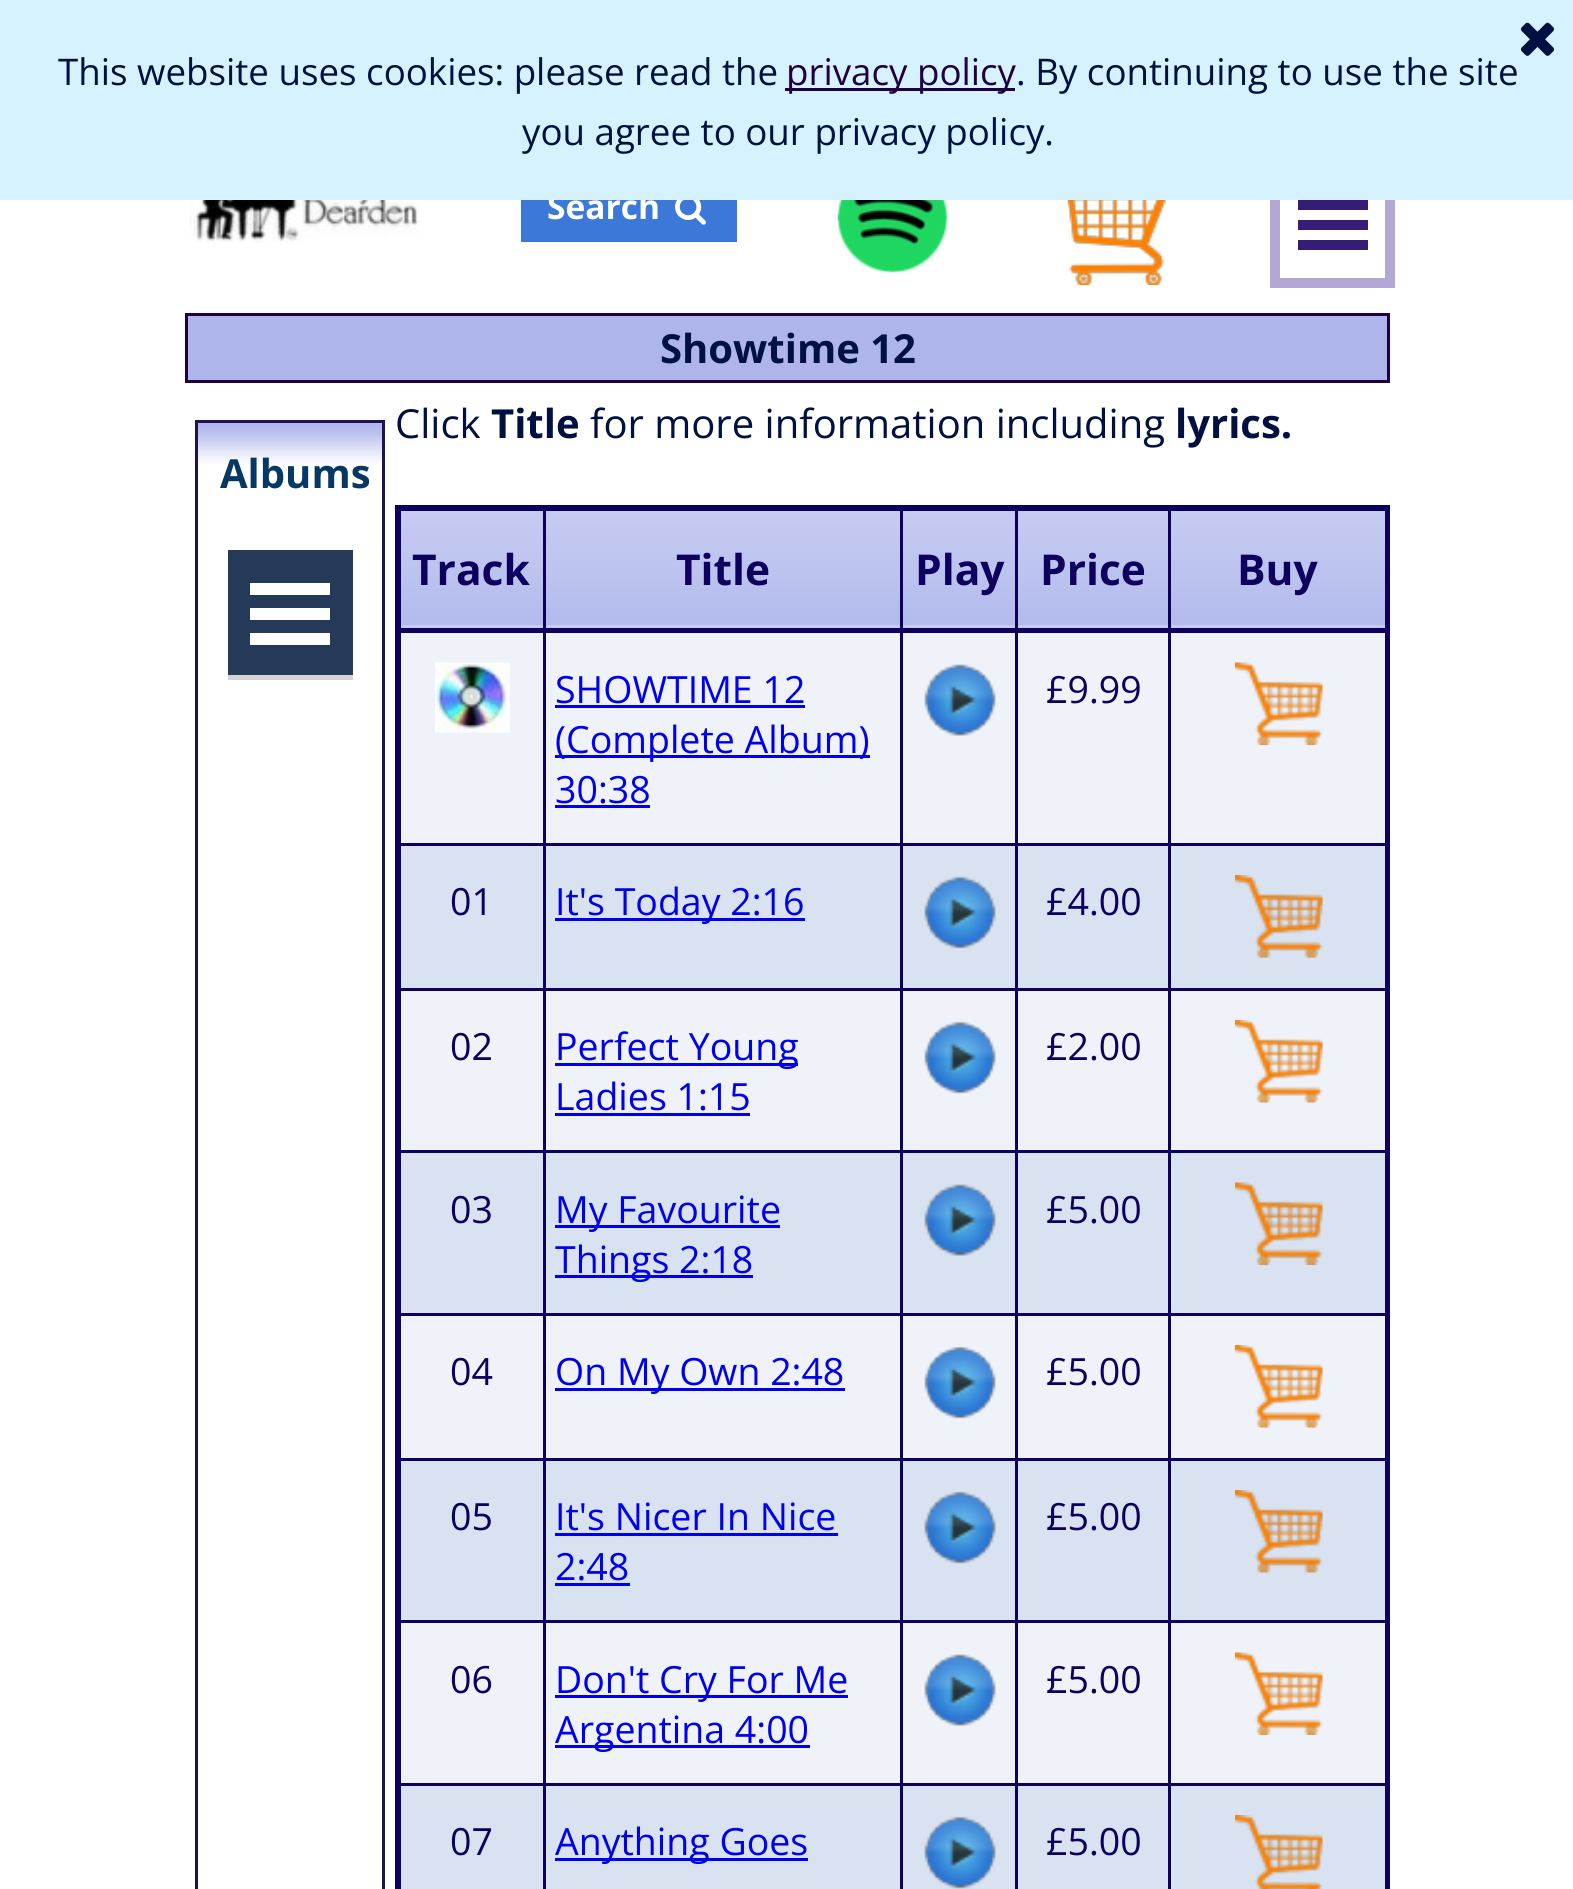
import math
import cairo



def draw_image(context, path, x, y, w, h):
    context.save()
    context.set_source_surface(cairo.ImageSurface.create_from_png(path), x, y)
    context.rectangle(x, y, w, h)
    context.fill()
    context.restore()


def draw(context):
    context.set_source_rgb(1, 1, 1)
    context.paint()
    draw_image(context, "images/2.png", 189, 200, 231, 43)
    context.set_source_rgb(60 / 255, 120 / 255, 216 / 255)
    context.rectangle(521, 200, 216, 42)
    context.fill()
    draw_image(context, "images/3.png", 675, 200, 31, 25)
    draw_image(context, "images/4.png", 837, 200, 111, 73)
    draw_image(context, "images/5.png", 1067, 200, 100, 85)
    context.rectangle(1275, 168, 115, 115)
    context.set_source_rgb(180 / 255, 167 / 255, 214 / 255)
    context.set_line_width(10)
    context.stroke()
    context.set_source_rgb(53 / 255, 28 / 255, 117 / 255)
    context.rectangle(1298, 200, 70, 10)
    context.fill()
    context.rectangle(1298, 220, 70, 10)
    context.fill()
    context.rectangle(1298, 240, 70, 10)
    context.fill()
    context.set_source_rgb(173 / 255, 181 / 255, 235 / 255)
    context.rectangle(186.5, 314.5, 1202, 67)
    context.fill_preserve()
    context.set_source_rgb(32 / 255, 0, 64 / 255)
    context.set_line_width(3)
    context.stroke()
    draw_image(context, "images/6.png", 198, 423, 184, 41)
    context.rectangle(196.5, 421.5, 187, 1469)
    context.set_source_rgb(32 / 255, 18 / 255, 77 / 255)
    context.stroke()
    context.set_source_rgb(37 / 255, 58 / 255, 88 / 255)
    context.rectangle(228, 550, 125, 125)
    context.fill()
    context.set_source_rgb(211 / 255, 211 / 255, 211 / 255)
    context.rectangle(228, 675, 125, 5)
    context.fill()
    context.set_source_rgb(1, 1, 1)
    context.rectangle(250, 583, 80, 12)
    context.fill()
    context.rectangle(250, 608, 80, 12)
    context.fill()
    context.rectangle(250, 633, 80, 12)
    context.fill()
    context.set_source_rgb(239 / 255, 243 / 255, 249 / 255)
    context.rectangle(401, 633, 984, 1150)
    context.fill()
    gradient = cairo.LinearGradient(893, 625, 893, 743)
    gradient.add_color_stop_rgba(0, 198 / 255, 204 / 255, 241 / 255, 1)
    gradient.add_color_stop_rgba(0.66, 186 / 255, 193 / 255, 238 / 255, 1)
    gradient.add_color_stop_rgba(1, 179 / 255, 187 / 255, 237 / 255, 1)
    context.set_source(gradient)
    context.rectangle(398, 625, 990, 3)
    context.fill()
    context.set_source_rgb(13 / 255, 0, 94 / 255)
    context.rectangle(1168, 510, 220, 1)
    context.fill()
    gradient = cairo.LinearGradient(893, 507, 893, 625)
    gradient.add_color_stop_rgba(0, 198 / 255, 204 / 255, 241 / 255, 1)
    gradient.add_color_stop_rgba(0.66, 186 / 255, 193 / 255, 238 / 255, 1)
    gradient.add_color_stop_rgba(1, 179 / 255, 187 / 255, 237 / 255, 1)
    context.set_source(gradient)
    context.rectangle(401, 511, 984, 114)
    context.fill()
    context.set_source_rgb(13 / 255, 0, 94 / 255)
    context.rectangle(1168, 843, 220, 3)
    context.fill()
    context.set_source_rgb(216 / 255, 226 / 255, 240 / 255)
    context.rectangle(401, 846, 984, 142)
    context.fill()
    context.set_source_rgb(13 / 255, 0, 94 / 255)
    context.rectangle(1168, 988, 220, 3)
    context.fill()
    context.rectangle(1168, 1150, 220, 3)
    context.fill()
    context.set_source_rgb(216 / 255, 226 / 255, 240 / 255)
    context.rectangle(401, 1153, 984, 160)
    context.fill()
    context.set_source_rgb(13 / 255, 0, 94 / 255)
    context.rectangle(1168, 1313, 220, 3)
    context.fill()
    context.rectangle(1168, 1458, 220, 3)
    context.fill()
    context.set_source_rgb(216 / 255, 226 / 255, 240 / 255)
    context.rectangle(401, 1461, 984, 159)
    context.fill()
    context.set_source_rgb(13 / 255, 0, 94 / 255)
    context.rectangle(1168, 1620, 220, 3)
    context.fill()
    context.rectangle(1168, 1783, 220, 3)
    context.fill()
    context.set_source_rgb(216 / 255, 226 / 255, 240 / 255)
    context.rectangle(401, 1786, 984, 103)
    context.fill()
    context.set_source_rgb(13 / 255, 0, 94 / 255)
    context.rectangle(1168, 1783, 3, 106)
    context.fill()
    context.rectangle(1015, 1783, 155, 3)
    context.fill()
    context.rectangle(1168, 1620, 3, 165)
    context.fill()
    context.rectangle(1015, 1620, 155, 3)
    context.fill()
    context.rectangle(1168, 1458, 3, 165)
    context.fill()
    context.rectangle(1015, 1458, 155, 3)
    context.fill()
    context.rectangle(1168, 1313, 3, 147)
    context.fill()
    context.rectangle(1015, 1313, 155, 3)
    context.fill()
    context.rectangle(1168, 1150, 3, 165)
    context.fill()
    context.rectangle(1015, 1150, 155, 3)
    context.fill()
    context.rectangle(1168, 988, 3, 165)
    context.fill()
    context.rectangle(1015, 988, 155, 3)
    context.fill()
    context.rectangle(1168, 843, 3, 147)
    context.fill()
    context.rectangle(1015, 843, 155, 3)
    context.fill()
    context.rectangle(1168, 630, 3, 215)
    context.fill()
    context.rectangle(1168, 508, 3, 125)
    context.fill()
    context.rectangle(1015, 510, 155, 1)
    context.fill()
    context.rectangle(1015, 1783, 3, 106)
    context.fill()
    context.rectangle(900, 1783, 118, 3)
    context.fill()
    context.rectangle(1015, 1620, 3, 165)
    context.fill()
    context.rectangle(900, 1620, 118, 3)
    context.fill()
    context.rectangle(1015, 1458, 3, 165)
    context.fill()
    context.rectangle(900, 1458, 118, 3)
    context.fill()
    context.rectangle(1015, 1313, 3, 147)
    context.fill()
    context.rectangle(900, 1313, 118, 3)
    context.fill()
    context.rectangle(1015, 1150, 3, 165)
    context.fill()
    context.rectangle(900, 1150, 118, 3)
    context.fill()
    context.rectangle(1015, 988, 3, 165)
    context.fill()
    context.rectangle(900, 988, 118, 3)
    context.fill()
    context.rectangle(1015, 843, 3, 147)
    context.fill()
    context.rectangle(900, 843, 118, 3)
    context.fill()
    context.rectangle(1015, 630, 3, 215)
    context.fill()
    context.rectangle(1015, 508, 3, 125)
    context.fill()
    context.rectangle(900, 510, 118, 1)
    context.fill()
    context.rectangle(900, 1783, 3, 106)
    context.fill()
    context.rectangle(543, 1783, 360, 3)
    context.fill()
    context.rectangle(900, 1620, 3, 165)
    context.fill()
    context.rectangle(543, 1620, 360, 3)
    context.fill()
    context.rectangle(900, 1458, 3, 165)
    context.fill()
    context.rectangle(543, 1458, 360, 3)
    context.fill()
    context.rectangle(900, 1313, 3, 147)
    context.fill()
    context.rectangle(543, 1313, 360, 3)
    context.fill()
    context.rectangle(900, 1150, 3, 165)
    context.fill()
    context.rectangle(543, 1150, 360, 3)
    context.fill()
    context.rectangle(900, 988, 3, 165)
    context.fill()
    context.rectangle(543, 988, 360, 3)
    context.fill()
    context.rectangle(900, 843, 3, 147)
    context.fill()
    context.rectangle(543, 843, 360, 3)
    context.fill()
    context.rectangle(900, 630, 3, 215)
    context.fill()
    context.rectangle(900, 508, 3, 125)
    context.fill()
    context.rectangle(543, 510, 360, 1)
    context.fill()
    context.rectangle(543, 1783, 3, 106)
    context.fill()
    context.rectangle(398, 1783, 147, 3)
    context.fill()
    context.rectangle(543, 1620, 3, 165)
    context.fill()
    context.rectangle(398, 1620, 147, 3)
    context.fill()
    context.rectangle(543, 1458, 3, 165)
    context.fill()
    context.rectangle(398, 1458, 147, 3)
    context.fill()
    context.rectangle(543, 1313, 3, 147)
    context.fill()
    context.rectangle(398, 1313, 147, 3)
    context.fill()
    context.rectangle(543, 1150, 3, 165)
    context.fill()
    context.rectangle(398, 1150, 147, 3)
    context.fill()
    context.rectangle(543, 988, 3, 165)
    context.fill()
    context.rectangle(398, 988, 147, 3)
    context.fill()
    context.rectangle(543, 843, 3, 147)
    context.fill()
    context.rectangle(398, 843, 147, 3)
    context.fill()
    context.rectangle(543, 630, 3, 215)
    context.fill()
    context.rectangle(543, 508, 3, 125)
    context.fill()
    context.rectangle(398, 510, 147, 1)
    context.fill()
    context.rectangle(400, 1783, 1, 106)
    context.fill()
    context.rectangle(400, 1620, 1, 165)
    context.fill()
    context.rectangle(400, 1458, 1, 165)
    context.fill()
    context.rectangle(400, 1313, 1, 147)
    context.fill()
    context.rectangle(400, 1150, 1, 165)
    context.fill()
    context.rectangle(400, 988, 1, 165)
    context.fill()
    context.rectangle(400, 630, 1, 360)
    context.fill()
    context.rectangle(400, 508, 1, 125)
    context.fill()
    context.rectangle(395, 505, 995, 5)
    context.fill()
    context.rectangle(1385, 505, 5, 1384)
    context.fill()
    context.rectangle(395, 505, 5, 1384)
    context.fill()
    context.rectangle(395, 628, 995, 5)
    context.fill()
    draw_image(context, "images/7.png", 435, 662, 75, 71)
    context.set_source_rgb(0, 0, 238 / 255)
    context.rectangle(555, 705, 250, 3)
    context.fill()
    context.rectangle(555, 755, 315, 3)
    context.fill()
    context.rectangle(555, 805, 95, 3)
    context.fill()
    draw_image(context, "images/8.png", 924, 664, 72, 72)
    draw_image(context, "images/9.png", 1235, 662, 88, 83)
    context.rectangle(555, 918, 250, 3)
    context.fill()
    draw_image(context, "images/10.png", 924, 876, 72, 73)
    draw_image(context, "images/11.png", 1235, 875, 88, 83)
    context.rectangle(555, 1063, 243, 3)
    context.fill()
    context.rectangle(555, 1113, 195, 3)
    context.fill()
    draw_image(context, "images/12.png", 924, 1021, 72, 73)
    draw_image(context, "images/13.png", 1235, 1020, 88, 83)
    context.rectangle(555, 1225, 225, 3)
    context.fill()
    context.rectangle(555, 1275, 198, 3)
    context.fill()
    draw_image(context, "images/14.png", 924, 1184, 72, 72)
    draw_image(context, "images/15.png", 1235, 1182, 88, 83)
    context.rectangle(555, 1388, 290, 3)
    context.fill()
    draw_image(context, "images/12.png", 924, 1346, 72, 73)
    draw_image(context, "images/13.png", 1235, 1345, 88, 83)
    context.rectangle(555, 1533, 283, 3)
    context.fill()
    context.rectangle(555, 1583, 75, 3)
    context.fill()
    draw_image(context, "images/10.png", 924, 1491, 72, 73)
    draw_image(context, "images/11.png", 1235, 1490, 88, 83)
    context.rectangle(555, 1695, 293, 3)
    context.fill()
    context.rectangle(555, 1745, 255, 3)
    context.fill()
    draw_image(context, "images/8.png", 924, 1654, 72, 72)
    draw_image(context, "images/9.png", 1235, 1652, 88, 83)
    context.rectangle(555, 1858, 253, 3)
    context.fill()
    draw_image(context, "images/10.png", 924, 1816, 72, 73)
    draw_image(context, "images/16.png", 1235, 1815, 88, 74)
    context.select_font_face("Open Sans", cairo.FontSlant.NORMAL, cairo.FontWeight.BOLD)
    context.set_font_size(33.5)
    context.set_source_rgb(1, 1, 1)
    context.move_to(547, 219)
    context.show_text("Search")
    context.set_source_rgb(215 / 255, 242 / 255, 1)
    context.rectangle(0, 0, 1573, 200)
    context.fill()
    draw_image(context, "images/1.png", 1520, 22, 35, 34)
    context.select_font_face("Open Sans")
    context.set_font_size(36.7)
    context.set_source_rgb(0, 16 / 255, 64 / 255)
    context.move_to(522, 145)
    context.show_text("you agree to our privacy policy.")
    context.move_to(1016, 85)
    context.show_text(". By continuing to use the site")
    context.set_source_rgb(32 / 255, 0, 64 / 255)
    context.rectangle(785, 88, 230, 3)
    context.fill()
    context.move_to(786, 85)
    context.show_text("privacy policy")
    context.set_source_rgb(0, 16 / 255, 64 / 255)
    context.move_to(58, 85)
    context.show_text("This website uses cookies: please read the")
    context.select_font_face("Open Sans", cairo.FontSlant.NORMAL, cairo.FontWeight.BOLD)
    context.set_font_size(40)
    context.move_to(660, 363)
    context.show_text("Showtime 12")
    context.set_source_rgb(7 / 255, 55 / 255, 99 / 255)
    context.move_to(220, 488)
    context.show_text("Albums")
    context.select_font_face("Open Sans")
    context.set_source_rgb(0, 16 / 255, 64 / 255)
    context.move_to(395, 438)
    context.show_text("Click")
    context.select_font_face("Open Sans", cairo.FontSlant.NORMAL, cairo.FontWeight.BOLD)
    context.move_to(491, 438)
    context.show_text("Title")
    context.select_font_face("Open Sans")
    context.move_to(590, 438)
    context.show_text("for more information including")
    context.select_font_face("Open Sans", cairo.FontSlant.NORMAL, cairo.FontWeight.BOLD)
    context.move_to(1175, 438)
    context.show_text("lyrics.")
    context.set_font_size(42.5)
    context.set_source_rgb(13 / 255, 0, 94 / 255)
    context.move_to(412, 585)
    context.show_text("Track")
    context.move_to(676, 585)
    context.show_text("Title")
    context.move_to(915, 585)
    context.show_text("Play")
    context.move_to(1040, 585)
    context.show_text("Price")
    context.move_to(1237, 585)
    context.show_text("Buy")
    context.select_font_face("Open Sans")
    context.set_font_size(37.5)
    context.set_source_rgb(0, 0, 238 / 255)
    context.move_to(555, 703)
    context.show_text("SHOWTIME 12")
    context.move_to(555, 753)
    context.show_text("(Complete Album)")
    context.move_to(555, 803)
    context.show_text("30:38")
    context.set_source_rgb(13 / 255, 0, 94 / 255)
    context.move_to(1046, 703)
    context.show_text("£9.99")
    context.move_to(450, 915)
    context.show_text("01")
    context.set_source_rgb(0, 0, 238 / 255)
    context.move_to(555, 915)
    context.show_text("It's Today 2:16")
    context.set_source_rgb(13 / 255, 0, 94 / 255)
    context.move_to(1046, 915)
    context.show_text("£4.00")
    context.move_to(450, 1060)
    context.show_text("02")
    context.set_source_rgb(0, 0, 238 / 255)
    context.move_to(555, 1060)
    context.show_text("Perfect Young")
    context.move_to(555, 1110)
    context.show_text("Ladies 1:15")
    context.set_source_rgb(13 / 255, 0, 94 / 255)
    context.move_to(1046, 1060)
    context.show_text("£2.00")
    context.move_to(450, 1223)
    context.show_text("03")
    context.set_source_rgb(0, 0, 238 / 255)
    context.move_to(555, 1223)
    context.show_text("My Favourite")
    context.move_to(555, 1273)
    context.show_text("Things 2:18")
    context.set_source_rgb(13 / 255, 0, 94 / 255)
    context.move_to(1046, 1223)
    context.show_text("£5.00")
    context.move_to(450, 1385)
    context.show_text("04")
    context.set_source_rgb(0, 0, 238 / 255)
    context.move_to(555, 1385)
    context.show_text("On My Own 2:48")
    context.set_source_rgb(13 / 255, 0, 94 / 255)
    context.move_to(1046, 1385)
    context.show_text("£5.00")
    context.move_to(450, 1530)
    context.show_text("05")
    context.set_source_rgb(0, 0, 238 / 255)
    context.move_to(555, 1530)
    context.show_text("It's Nicer In Nice")
    context.move_to(555, 1580)
    context.show_text("2:48")
    context.set_source_rgb(13 / 255, 0, 94 / 255)
    context.move_to(1046, 1530)
    context.show_text("£5.00")
    context.move_to(450, 1693)
    context.show_text("06")
    context.set_source_rgb(0, 0, 238 / 255)
    context.move_to(555, 1693)
    context.show_text("Don't Cry For Me")
    context.move_to(555, 1743)
    context.show_text("Argentina 4:00")
    context.set_source_rgb(13 / 255, 0, 94 / 255)
    context.move_to(1046, 1693)
    context.show_text("£5.00")
    context.move_to(450, 1855)
    context.show_text("07")
    context.set_source_rgb(0, 0, 238 / 255)
    context.move_to(555, 1855)
    context.show_text("Anything Goes")
    context.set_source_rgb(13 / 255, 0, 94 / 255)
    context.move_to(1046, 1855)
    context.show_text("£5.00")


surface = cairo.ImageSurface(cairo.Format.RGB24, 1573, 1889)
context = cairo.Context(surface)
options = cairo.FontOptions()
options.set_hint_metrics(cairo.HintMetrics.OFF)
options.set_hint_style(cairo.HintStyle.NONE)
context.set_font_options(options)
context.set_miter_limit(4)
draw(context)
surface.write_to_png("out.png")
